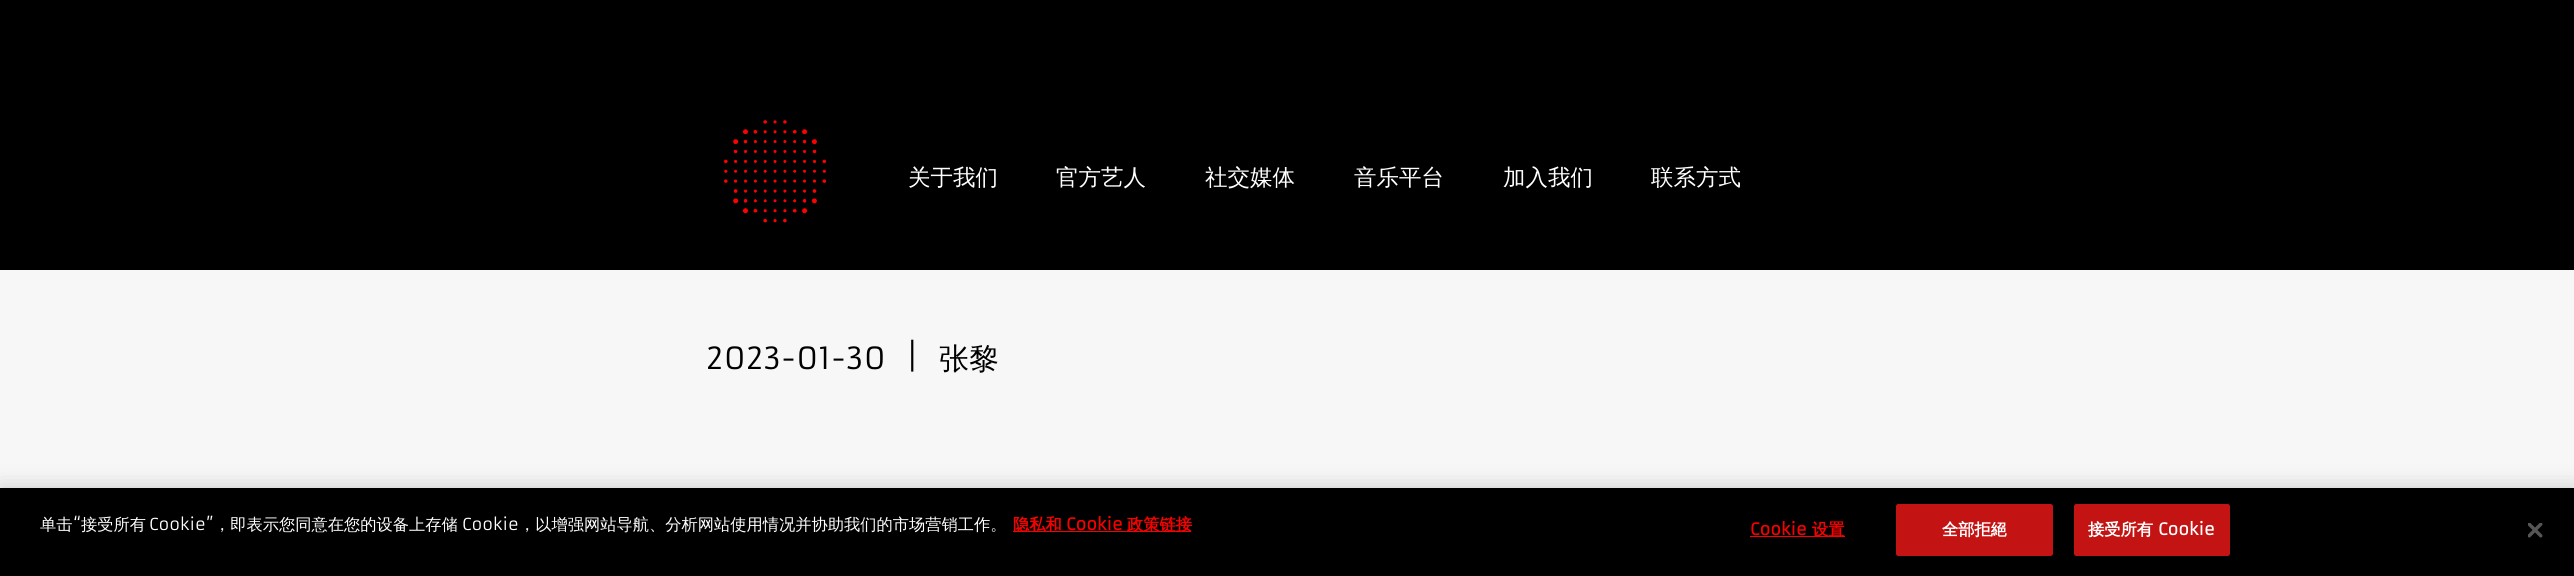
import math
import cairo



def rounded_rect(context, x, y, w, h, r):
    context.new_sub_path()
    for i, (u, v) in enumerate([(x + w - r, y + h - r), (x + r, y + h - r), (x + r, y + r), (x + w - r, y + r)]):
        context.arc(u, v, r, i * math.pi / 2, (i + 1) * math.pi / 2)
    context.close_path()


def draw_shadow(context, x, y, w, h, r, blur, alpha):
    context.push_group_with_content(cairo.Content.ALPHA)
    context.set_operator(cairo.Operator.SOURCE)
    for i in range(15, -16, -2):
        e = blur * i / 6
        if min(w, h) + 2 * e > 0:
            context.set_source_rgba(0, 0, 0, alpha * math.erfc((i - 1) / 8.5) / 2)
            rounded_rect(context, x - e, y - e, w + 2 * e, h + 2 * e, max(0, min(r + e + blur * .6, min(w, h) / 2 + e)))
            context.fill()
    context.mask(context.pop_group())


def draw_image(context, path, x, y, w, h):
    context.save()
    context.set_source_surface(cairo.ImageSurface.create_from_png(path), x, y)
    context.rectangle(x, y, w, h)
    context.fill()
    context.restore()


def draw(context):
    context.set_source_rgb(247 / 255, 247 / 255, 247 / 255)
    context.paint()
    context.set_source_rgb(0, 0, 0)
    context.rectangle(0, 0, 2574, 270)
    context.fill()
    draw_image(context, "images/1.png", 723, 120, 104, 103)
    context.set_source_rgb(0, 0, 0)
    draw_shadow(context, 0, 488, 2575, 88, 0, 11, 0.2)
    context.set_source_rgb(0, 0, 0)
    context.rectangle(0, 488, 2574, 88)
    context.fill()
    context.set_source_rgb(249 / 255, 0, 0)
    context.rectangle(1013, 531, 178, 1)
    context.fill()
    context.rectangle(1750, 536, 95, 1)
    context.fill()
    context.set_source_rgb(195 / 255, 19 / 255, 19 / 255)
    rounded_rect(context, 1896.5, 504.5, 156, 51, 2)
    context.fill_preserve()
    context.set_line_width(1)
    context.stroke()
    rounded_rect(context, 2074.5, 504.5, 155, 51, 2)
    context.fill_preserve()
    context.stroke()
    draw_image(context, "images/2.png", 2528, 523, 15, 15)
    context.select_font_face("WenQuanYi Zen Hei Medium")
    context.set_font_size(22.5)
    context.set_source_rgb(1, 1, 1)
    context.move_to(908, 185)
    context.show_text("关于我们")
    context.move_to(1056, 185)
    context.show_text("官方艺人")
    context.move_to(1205, 185)
    context.show_text("社交媒体")
    context.move_to(1354, 185)
    context.show_text("音乐平台")
    context.move_to(1503, 185)
    context.show_text("加入我们")
    context.move_to(1651, 185)
    context.show_text("联系方式")
    context.select_font_face("Armata")
    context.set_font_size(30)
    context.set_source_rgb(0, 0, 0)
    context.move_to(706, 369)
    context.show_text("2023-01-30")
    context.move_to(906, 369)
    context.show_text("|")
    context.select_font_face("WenQuanYi Zen Hei Medium")
    context.move_to(939, 369)
    context.show_text("张黎")
    context.set_font_size(16.25)
    context.set_source_rgb(1, 1, 1)
    context.move_to(40, 530)
    context.show_text("单击")
    context.select_font_face("Armata")
    context.move_to(73, 530)
    context.show_text("“")
    context.select_font_face("WenQuanYi Zen Hei Medium")
    context.move_to(81, 530)
    context.show_text("接受所有")
    context.select_font_face("Armata")
    context.move_to(149, 530)
    context.show_text("Cookie”")
    context.select_font_face("WenQuanYi Zen Hei Medium")
    context.move_to(214, 530)
    context.show_text("，即表示您同意在您的设备上存储")
    context.select_font_face("Armata")
    context.move_to(462, 530)
    context.show_text("Cookie")
    context.select_font_face("WenQuanYi Zen Hei Medium")
    context.move_to(519, 530)
    context.show_text("，以增强网站导航、分析网站使用情况并协助我们的市场营销工作。")
    context.select_font_face("WenQuanYi Zen Hei", cairo.FontSlant.NORMAL, cairo.FontWeight.BOLD)
    context.set_source_rgb(249 / 255, 0, 0)
    context.move_to(1013, 530)
    context.show_text("隐私和")
    context.select_font_face("Armata", cairo.FontSlant.NORMAL, cairo.FontWeight.BOLD)
    context.move_to(1066, 530)
    context.show_text("Cookie")
    context.select_font_face("WenQuanYi Zen Hei", cairo.FontSlant.NORMAL, cairo.FontWeight.BOLD)
    context.move_to(1127, 530)
    context.show_text("政策链接")
    context.select_font_face("Armata", cairo.FontSlant.NORMAL, cairo.FontWeight.BOLD)
    context.move_to(1750, 535)
    context.show_text("Cookie")
    context.select_font_face("WenQuanYi Zen Hei", cairo.FontSlant.NORMAL, cairo.FontWeight.BOLD)
    context.move_to(1812, 535)
    context.show_text("设置")
    context.set_source_rgb(1, 1, 1)
    context.move_to(1942, 535)
    context.show_text("全部拒絕")
    context.move_to(2088, 535)
    context.show_text("接受所有")
    context.select_font_face("Armata", cairo.FontSlant.NORMAL, cairo.FontWeight.BOLD)
    context.move_to(2158, 535)
    context.show_text("Cookie")


surface = cairo.ImageSurface(cairo.Format.RGB24, 2574, 576)
context = cairo.Context(surface)
options = cairo.FontOptions()
options.set_hint_metrics(cairo.HintMetrics.OFF)
options.set_hint_style(cairo.HintStyle.NONE)
context.set_font_options(options)
context.set_miter_limit(4)
draw(context)
surface.write_to_png("out.png")
